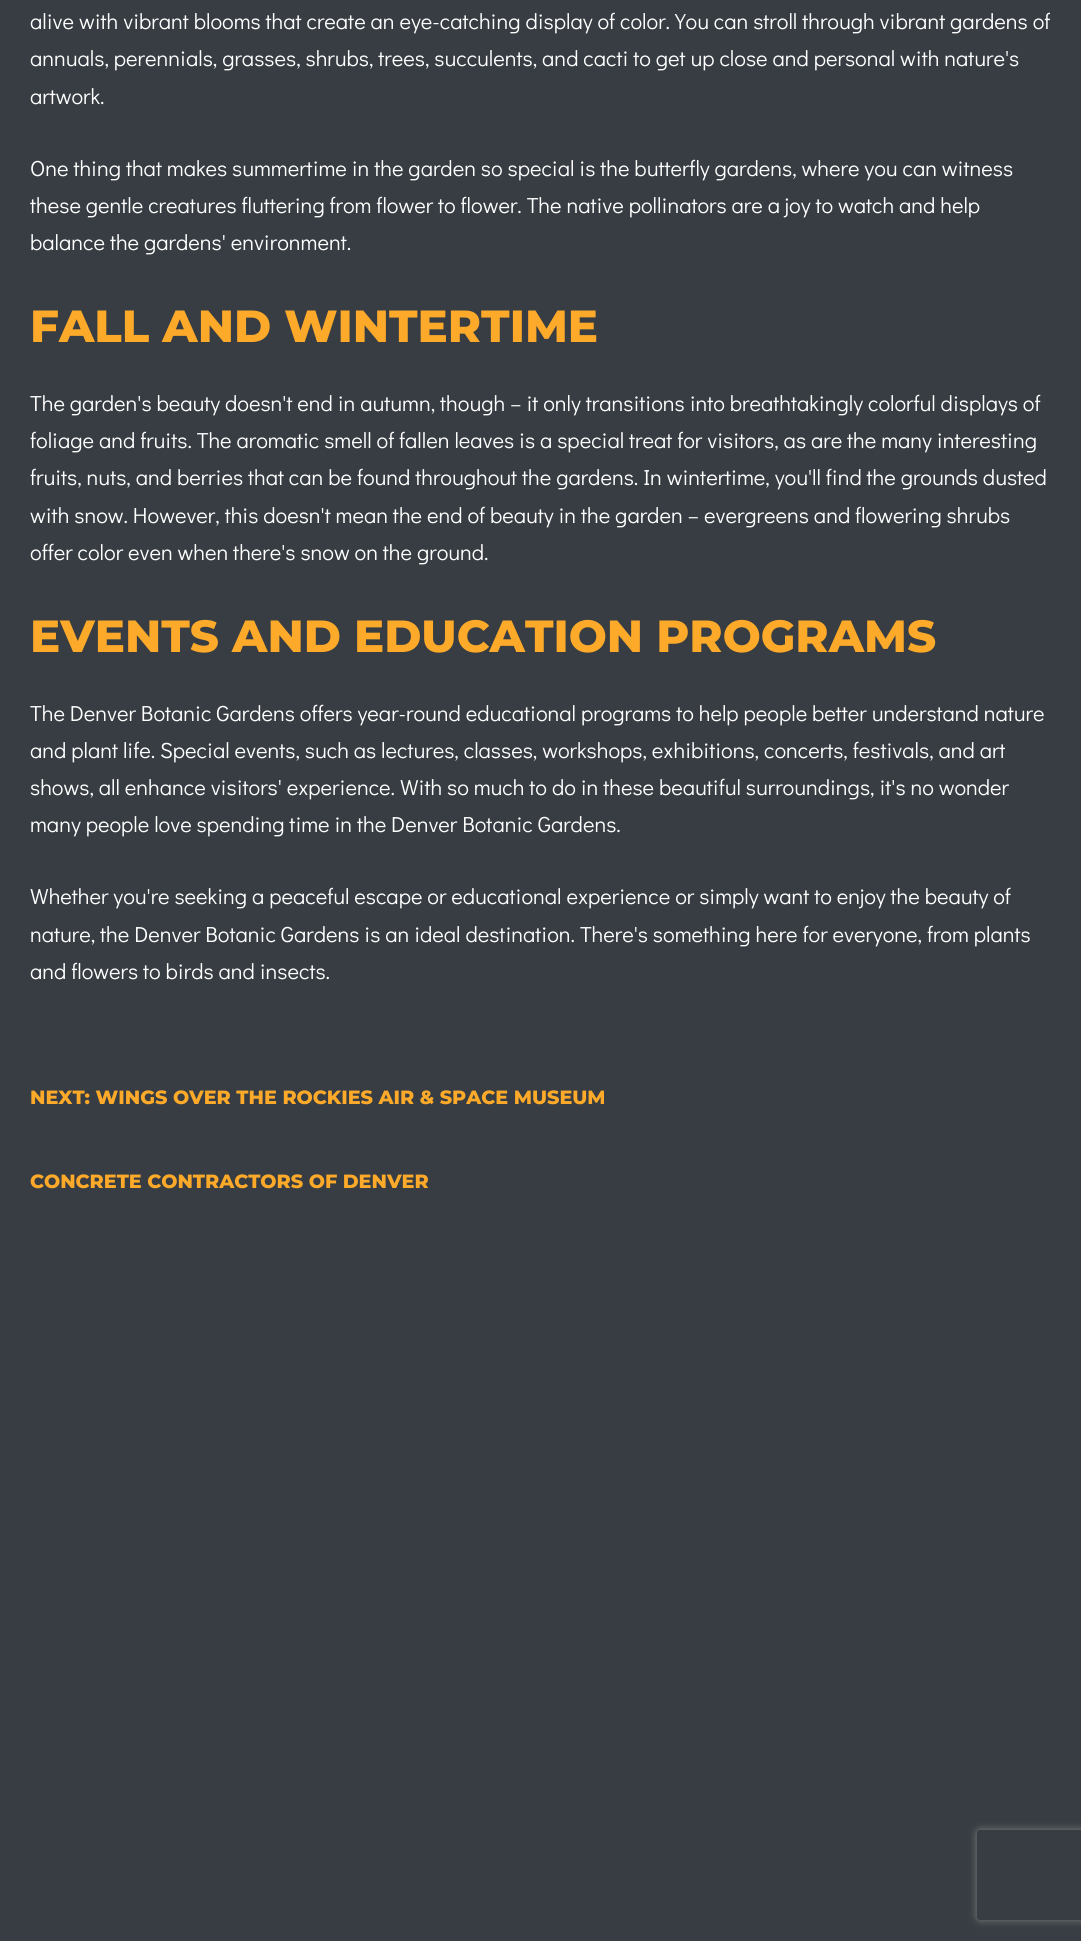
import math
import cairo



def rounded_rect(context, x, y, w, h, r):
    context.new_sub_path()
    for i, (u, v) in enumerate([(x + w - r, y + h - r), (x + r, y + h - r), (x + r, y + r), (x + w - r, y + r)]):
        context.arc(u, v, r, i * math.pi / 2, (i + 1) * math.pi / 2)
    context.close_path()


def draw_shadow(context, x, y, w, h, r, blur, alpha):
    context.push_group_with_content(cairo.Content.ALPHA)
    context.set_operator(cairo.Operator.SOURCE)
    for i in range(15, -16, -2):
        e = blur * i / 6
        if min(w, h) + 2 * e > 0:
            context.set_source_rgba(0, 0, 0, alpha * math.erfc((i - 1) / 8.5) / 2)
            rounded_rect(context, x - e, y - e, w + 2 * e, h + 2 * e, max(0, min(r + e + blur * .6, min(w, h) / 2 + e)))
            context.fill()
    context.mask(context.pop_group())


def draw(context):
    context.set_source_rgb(55 / 255, 61 / 255, 66 / 255)
    context.paint()
    context.save()
    context.set_fill_rule(cairo.FillRule.EVEN_ODD)
    context.new_path()
    context.move_to(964, 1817)
    context.line_to(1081, 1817)
    context.line_to(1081, 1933)
    context.line_to(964, 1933)
    context.close_path()
    context.move_to(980, 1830)
    context.line_to(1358, 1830)
    context.curve_to(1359.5, 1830, 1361, 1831.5, 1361, 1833)
    context.line_to(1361, 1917)
    context.curve_to(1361, 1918.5, 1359.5, 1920, 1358, 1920)
    context.line_to(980, 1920)
    context.curve_to(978.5, 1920, 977, 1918.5, 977, 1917)
    context.line_to(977, 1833)
    context.curve_to(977, 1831.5, 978.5, 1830, 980, 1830)
    context.close_path()
    context.clip()
    context.set_source_rgb(128 / 255, 128 / 255, 128 / 255)
    draw_shadow(context, 977, 1830, 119, 90, 3, 4, 1)
    context.restore()
    context.select_font_face("Didact Gothic")
    context.set_font_size(21.9)
    context.set_source_rgb(1, 1, 1)
    context.move_to(30, 29)
    context.show_text("alive with vibrant blooms that create an eye-catching display of color. You can stroll through vibrant gardens of")
    context.move_to(30, 66)
    context.show_text("annuals, perennials, grasses, shrubs, trees, succulents, and cacti to get up close and personal with nature's")
    context.move_to(30, 104)
    context.show_text("artwork.")
    context.move_to(30, 176)
    context.show_text("One thing that makes summertime in the garden so special is the butterfly gardens, where you can witness")
    context.move_to(30, 213)
    context.show_text("these gentle creatures fluttering from flower to flower. The native pollinators are a joy to watch and help")
    context.move_to(30, 250)
    context.show_text("balance the gardens' environment.")
    context.select_font_face("Montserrat Thin")
    context.set_font_size(45)
    context.set_source_rgb(253 / 255, 169 / 255, 41 / 255)
    context.move_to(30, 342)
    context.show_text("FALL AND WINTERTIME")
    context.select_font_face("Didact Gothic")
    context.set_font_size(21.9)
    context.set_source_rgb(1, 1, 1)
    context.move_to(30, 411)
    context.show_text("The garden's beauty doesn't end in autumn, though – it only transitions into breathtakingly colorful displays of")
    context.move_to(30, 448)
    context.show_text("foliage and fruits. The aromatic smell of fallen leaves is a special treat for visitors, as are the many interesting")
    context.move_to(30, 485)
    context.show_text("fruits, nuts, and berries that can be found throughout the gardens. In wintertime, you'll find the grounds dusted")
    context.move_to(30, 523)
    context.show_text("with snow. However, this doesn't mean the end of beauty in the garden – evergreens and flowering shrubs")
    context.move_to(30, 560)
    context.show_text("offer color even when there's snow on the ground.")
    context.select_font_face("Montserrat Thin")
    context.set_font_size(45)
    context.set_source_rgb(253 / 255, 169 / 255, 41 / 255)
    context.move_to(30, 652)
    context.show_text("EVENTS AND EDUCATION PROGRAMS")
    context.select_font_face("Didact Gothic")
    context.set_font_size(21.9)
    context.set_source_rgb(1, 1, 1)
    context.move_to(30, 721)
    context.show_text("The Denver Botanic Gardens offers year-round educational programs to help people better understand nature")
    context.move_to(30, 758)
    context.show_text("and plant life. Special events, such as lectures, classes, workshops, exhibitions, concerts, festivals, and art")
    context.move_to(30, 795)
    context.show_text("shows, all enhance visitors' experience. With so much to do in these beautiful surroundings, it's no wonder")
    context.move_to(30, 832)
    context.show_text("many people love spending time in the Denver Botanic Gardens.")
    context.move_to(30, 904)
    context.show_text("Whether you're seeking a peaceful escape or educational experience or simply want to enjoy the beauty of")
    context.move_to(30, 942)
    context.show_text("nature, the Denver Botanic Gardens is an ideal destination. There's something here for everyone, from plants")
    context.move_to(30, 979)
    context.show_text("and flowers to birds and insects.")
    context.select_font_face("Montserrat Thin")
    context.set_font_size(19.15)
    context.set_source_rgb(253 / 255, 169 / 255, 41 / 255)
    context.move_to(30, 1104)
    context.show_text("NEXT: WINGS OVER THE ROCKIES AIR & SPACE MUSEUM")
    context.move_to(30, 1188)
    context.show_text("CONCRETE CONTRACTORS OF DENVER")


surface = cairo.ImageSurface(cairo.Format.RGB24, 1081, 1941)
context = cairo.Context(surface)
options = cairo.FontOptions()
options.set_hint_metrics(cairo.HintMetrics.OFF)
options.set_hint_style(cairo.HintStyle.NONE)
context.set_font_options(options)
context.set_miter_limit(4)
draw(context)
surface.write_to_png("out.png")
